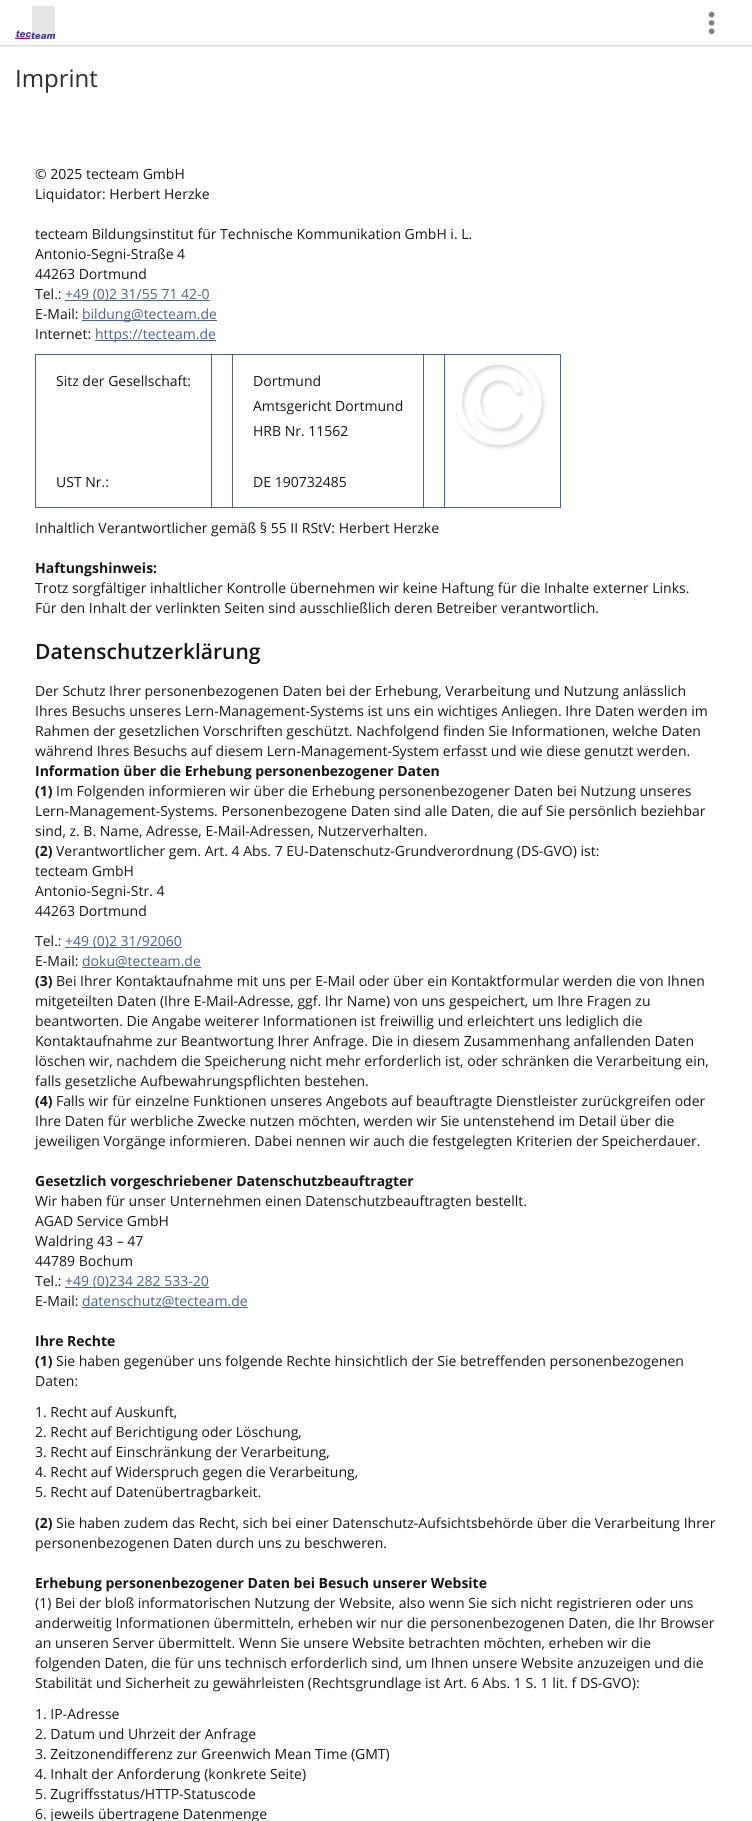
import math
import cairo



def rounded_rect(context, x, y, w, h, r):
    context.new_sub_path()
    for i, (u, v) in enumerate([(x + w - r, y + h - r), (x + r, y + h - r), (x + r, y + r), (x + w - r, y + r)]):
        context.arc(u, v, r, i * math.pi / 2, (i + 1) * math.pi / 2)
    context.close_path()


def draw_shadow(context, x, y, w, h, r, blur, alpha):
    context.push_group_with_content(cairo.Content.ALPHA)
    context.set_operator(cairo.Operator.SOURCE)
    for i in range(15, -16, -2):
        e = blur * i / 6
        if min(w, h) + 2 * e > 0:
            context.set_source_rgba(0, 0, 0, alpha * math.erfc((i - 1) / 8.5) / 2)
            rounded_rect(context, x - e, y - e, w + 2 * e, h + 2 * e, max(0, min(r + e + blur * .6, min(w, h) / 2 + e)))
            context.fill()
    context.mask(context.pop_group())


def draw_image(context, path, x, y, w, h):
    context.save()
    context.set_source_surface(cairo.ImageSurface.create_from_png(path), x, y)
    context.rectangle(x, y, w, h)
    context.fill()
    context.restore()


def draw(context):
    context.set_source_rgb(1, 1, 1)
    context.paint()
    context.save()
    context.rectangle(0, 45, 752, 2)
    context.clip()
    context.set_source_rgb(0, 0, 0)
    draw_shadow(context, 0, 1, 752, 45, 0, 1, 0.1)
    draw_shadow(context, 0, 1, 752, 45, 0, 1, 0.1)
    context.restore()
    draw_image(context, "images/1.png", 15, 6, 40, 33)
    draw_image(context, "images/2.png", 708, 11, 7, 24)
    context.set_source_rgb(76 / 255, 101 / 255, 134 / 255)
    context.rectangle(65, 300, 145, 1)
    context.fill()
    context.rectangle(82, 320, 135, 1)
    context.fill()
    context.rectangle(95, 340, 121, 1)
    context.fill()
    context.rectangle(444, 354, 117, 1)
    context.fill()
    context.rectangle(560, 354, 1, 154)
    context.fill()
    context.rectangle(444, 507, 117, 1)
    context.fill()
    context.rectangle(444, 354, 1, 154)
    context.fill()
    context.rectangle(423, 354, 22, 1)
    context.fill()
    context.rectangle(423, 507, 22, 1)
    context.fill()
    context.rectangle(423, 354, 1, 154)
    context.fill()
    context.rectangle(232, 354, 192, 1)
    context.fill()
    context.rectangle(232, 507, 192, 1)
    context.fill()
    context.rectangle(232, 354, 1, 154)
    context.fill()
    context.rectangle(211, 354, 22, 1)
    context.fill()
    context.rectangle(211, 507, 22, 1)
    context.fill()
    context.rectangle(211, 354, 1, 154)
    context.fill()
    context.rectangle(35, 354, 177, 1)
    context.fill()
    context.rectangle(35, 507, 177, 1)
    context.fill()
    context.rectangle(35, 354, 1, 154)
    context.fill()
    draw_image(context, "images/3.png", 456, 364, 90, 86)
    context.rectangle(65, 947, 117, 1)
    context.fill()
    context.rectangle(82, 967, 119, 1)
    context.fill()
    context.rectangle(65, 1287, 144, 1)
    context.fill()
    context.rectangle(82, 1307, 166, 1)
    context.fill()
    context.select_font_face("Open Sans")
    context.set_font_size(24)
    context.set_source_rgb(44 / 255, 44 / 255, 44 / 255)
    context.move_to(15, 87)
    context.show_text("Imprint")
    context.set_font_size(14)
    context.set_source_rgb(22 / 255, 22 / 255, 22 / 255)
    context.move_to(35, 179)
    context.show_text("© 2025 tecteam GmbH")
    context.move_to(35, 199)
    context.show_text("Liquidator: Herbert Herzke")
    context.move_to(35, 239)
    context.show_text("tecteam Bildungsinstitut für Technische Kommunikation GmbH i. L.")
    context.move_to(35, 259)
    context.show_text("Antonio-Segni-Straße 4")
    context.move_to(35, 279)
    context.show_text("44263 Dortmund")
    context.move_to(35, 299)
    context.show_text("Tel.:")
    context.set_source_rgb(76 / 255, 101 / 255, 134 / 255)
    context.move_to(65, 299)
    context.show_text("+49 (0)2 31/55 71 42-0")
    context.set_source_rgb(22 / 255, 22 / 255, 22 / 255)
    context.move_to(35, 319)
    context.show_text("E-Mail:")
    context.set_source_rgb(76 / 255, 101 / 255, 134 / 255)
    context.move_to(82, 319)
    context.show_text("bildung@tecteam.de")
    context.set_source_rgb(22 / 255, 22 / 255, 22 / 255)
    context.move_to(35, 339)
    context.show_text("Internet:")
    context.set_source_rgb(76 / 255, 101 / 255, 134 / 255)
    context.move_to(95, 339)
    context.show_text("https://tecteam.de")
    context.set_source_rgb(22 / 255, 22 / 255, 22 / 255)
    context.move_to(56, 386)
    context.show_text("Sitz der Gesellschaft:")
    context.move_to(56, 487)
    context.show_text("UST Nr.:")
    context.move_to(253, 386)
    context.show_text("Dortmund")
    context.move_to(253, 411)
    context.show_text("Amtsgericht Dortmund")
    context.move_to(253, 436)
    context.show_text("HRB Nr. 11562")
    context.move_to(253, 487)
    context.show_text("DE 190732485")
    context.move_to(35, 533)
    context.show_text("Inhaltlich Verantwortlicher gemäß § 55 II RStV: Herbert Herzke")
    context.select_font_face("Open Sans", cairo.FontSlant.NORMAL, cairo.FontWeight.BOLD)
    context.move_to(35, 573)
    context.show_text("Haftungshinweis:")
    context.select_font_face("Open Sans")
    context.move_to(35, 593)
    context.show_text("Trotz sorgfältiger inhaltlicher Kontrolle übernehmen wir keine Haftung für die Inhalte externer Links.")
    context.move_to(35, 613)
    context.show_text("Für den Inhalt der verlinkten Seiten sind ausschließlich deren Betreiber verantwortlich.")
    context.select_font_face("Open Sans SemiBold")
    context.set_font_size(21)
    context.move_to(35, 659)
    context.show_text("Datenschutzerklärung")
    context.select_font_face("Open Sans")
    context.set_font_size(14)
    context.move_to(35, 696)
    context.show_text("Der Schutz Ihrer personenbezogenen Daten bei der Erhebung, Verarbeitung und Nutzung anlässlich")
    context.move_to(35, 716)
    context.show_text("Ihres Besuchs unseres Lern-Management-Systems ist uns ein wichtiges Anliegen. Ihre Daten werden im")
    context.move_to(35, 736)
    context.show_text("Rahmen der gesetzlichen Vorschriften geschützt. Nachfolgend finden Sie Informationen, welche Daten")
    context.move_to(35, 756)
    context.show_text("während Ihres Besuchs auf diesem Lern-Management-System erfasst und wie diese genutzt werden.")
    context.select_font_face("Open Sans", cairo.FontSlant.NORMAL, cairo.FontWeight.BOLD)
    context.move_to(35, 776)
    context.show_text("Information über die Erhebung personenbezogener Daten")
    context.move_to(35, 796)
    context.show_text("(1)")
    context.select_font_face("Open Sans")
    context.move_to(56, 796)
    context.show_text("Im Folgenden informieren wir über die Erhebung personenbezogener Daten bei Nutzung unseres")
    context.move_to(35, 816)
    context.show_text("Lern-Management-Systems. Personenbezogene Daten sind alle Daten, die auf Sie persönlich beziehbar")
    context.move_to(35, 836)
    context.show_text("sind, z. B. Name, Adresse, E-Mail-Adressen, Nutzerverhalten.")
    context.select_font_face("Open Sans", cairo.FontSlant.NORMAL, cairo.FontWeight.BOLD)
    context.move_to(35, 856)
    context.show_text("(2)")
    context.select_font_face("Open Sans")
    context.move_to(56, 856)
    context.show_text("Verantwortlicher gem. Art. 4 Abs. 7 EU-Datenschutz-Grundverordnung (DS-GVO) ist:")
    context.move_to(35, 876)
    context.show_text("tecteam GmbH")
    context.move_to(35, 896)
    context.show_text("Antonio-Segni-Str. 4")
    context.move_to(35, 916)
    context.show_text("44263 Dortmund")
    context.move_to(35, 946)
    context.show_text("Tel.:")
    context.set_source_rgb(76 / 255, 101 / 255, 134 / 255)
    context.move_to(65, 946)
    context.show_text("+49 (0)2 31/92060")
    context.set_source_rgb(22 / 255, 22 / 255, 22 / 255)
    context.move_to(35, 966)
    context.show_text("E-Mail:")
    context.set_source_rgb(76 / 255, 101 / 255, 134 / 255)
    context.move_to(82, 966)
    context.show_text("doku@tecteam.de")
    context.select_font_face("Open Sans", cairo.FontSlant.NORMAL, cairo.FontWeight.BOLD)
    context.set_source_rgb(22 / 255, 22 / 255, 22 / 255)
    context.move_to(35, 986)
    context.show_text("(3)")
    context.select_font_face("Open Sans")
    context.move_to(56, 986)
    context.show_text("Bei Ihrer Kontaktaufnahme mit uns per E-Mail oder über ein Kontaktformular werden die von Ihnen")
    context.move_to(35, 1006)
    context.show_text("mitgeteilten Daten (Ihre E-Mail-Adresse, ggf. Ihr Name) von uns gespeichert, um Ihre Fragen zu")
    context.move_to(35, 1026)
    context.show_text("beantworten. Die Angabe weiterer Informationen ist freiwillig und erleichtert uns lediglich die")
    context.move_to(35, 1046)
    context.show_text("Kontaktaufnahme zur Beantwortung Ihrer Anfrage. Die in diesem Zusammenhang anfallenden Daten")
    context.move_to(35, 1066)
    context.show_text("löschen wir, nachdem die Speicherung nicht mehr erforderlich ist, oder schränken die Verarbeitung ein,")
    context.move_to(35, 1086)
    context.show_text("falls gesetzliche Aufbewahrungspflichten bestehen.")
    context.select_font_face("Open Sans", cairo.FontSlant.NORMAL, cairo.FontWeight.BOLD)
    context.move_to(35, 1106)
    context.show_text("(4)")
    context.select_font_face("Open Sans")
    context.move_to(56, 1106)
    context.show_text("Falls wir für einzelne Funktionen unseres Angebots auf beauftragte Dienstleister zurückgreifen oder")
    context.move_to(35, 1126)
    context.show_text("Ihre Daten für werbliche Zwecke nutzen möchten, werden wir Sie untenstehend im Detail über die")
    context.move_to(35, 1146)
    context.show_text("jeweiligen Vorgänge informieren. Dabei nennen wir auch die festgelegten Kriterien der Speicherdauer.")
    context.select_font_face("Open Sans", cairo.FontSlant.NORMAL, cairo.FontWeight.BOLD)
    context.move_to(35, 1186)
    context.show_text("Gesetzlich vorgeschriebener Datenschutzbeauftragter")
    context.select_font_face("Open Sans")
    context.move_to(35, 1206)
    context.show_text("Wir haben für unser Unternehmen einen Datenschutzbeauftragten bestellt.")
    context.move_to(35, 1226)
    context.show_text("AGAD Service GmbH")
    context.move_to(35, 1246)
    context.show_text("Waldring 43 – 47")
    context.move_to(35, 1266)
    context.show_text("44789 Bochum")
    context.move_to(35, 1286)
    context.show_text("Tel.:")
    context.set_source_rgb(76 / 255, 101 / 255, 134 / 255)
    context.move_to(65, 1286)
    context.show_text("+49 (0)234 282 533-20")
    context.set_source_rgb(22 / 255, 22 / 255, 22 / 255)
    context.move_to(35, 1306)
    context.show_text("E-Mail:")
    context.set_source_rgb(76 / 255, 101 / 255, 134 / 255)
    context.move_to(82, 1306)
    context.show_text("datenschutz@tecteam.de")
    context.select_font_face("Open Sans", cairo.FontSlant.NORMAL, cairo.FontWeight.BOLD)
    context.set_source_rgb(22 / 255, 22 / 255, 22 / 255)
    context.move_to(35, 1346)
    context.show_text("Ihre Rechte")
    context.move_to(35, 1366)
    context.show_text("(1)")
    context.select_font_face("Open Sans")
    context.move_to(56, 1366)
    context.show_text("Sie haben gegenüber uns folgende Rechte hinsichtlich der Sie betreffenden personenbezogenen")
    context.move_to(35, 1386)
    context.show_text("Daten:")
    context.move_to(35, 1417)
    context.show_text("1. Recht auf Auskunft,")
    context.move_to(35, 1437)
    context.show_text("2. Recht auf Berichtigung oder Löschung,")
    context.move_to(35, 1457)
    context.show_text("3. Recht auf Einschränkung der Verarbeitung,")
    context.move_to(35, 1477)
    context.show_text("4. Recht auf Widerspruch gegen die Verarbeitung,")
    context.move_to(35, 1497)
    context.show_text("5. Recht auf Datenübertragbarkeit.")
    context.select_font_face("Open Sans", cairo.FontSlant.NORMAL, cairo.FontWeight.BOLD)
    context.move_to(35, 1528)
    context.show_text("(2)")
    context.select_font_face("Open Sans")
    context.move_to(56, 1528)
    context.show_text("Sie haben zudem das Recht, sich bei einer Datenschutz-Aufsichtsbehörde über die Verarbeitung Ihrer")
    context.move_to(35, 1548)
    context.show_text("personenbezogenen Daten durch uns zu beschweren.")
    context.select_font_face("Open Sans", cairo.FontSlant.NORMAL, cairo.FontWeight.BOLD)
    context.move_to(35, 1588)
    context.show_text("Erhebung personenbezogener Daten bei Besuch unserer Website")
    context.select_font_face("Open Sans")
    context.move_to(35, 1608)
    context.show_text("(1) Bei der bloß informatorischen Nutzung der Website, also wenn Sie sich nicht registrieren oder uns")
    context.move_to(35, 1628)
    context.show_text("anderweitig Informationen übermitteln, erheben wir nur die personenbezogenen Daten, die Ihr Browser")
    context.move_to(35, 1648)
    context.show_text("an unseren Server übermittelt. Wenn Sie unsere Website betrachten möchten, erheben wir die")
    context.move_to(35, 1668)
    context.show_text("folgenden Daten, die für uns technisch erforderlich sind, um Ihnen unsere Website anzuzeigen und die")
    context.move_to(35, 1688)
    context.show_text("Stabilität und Sicherheit zu gewährleisten (Rechtsgrundlage ist Art. 6 Abs. 1 S. 1 lit. f DS-GVO):")
    context.move_to(35, 1719)
    context.show_text("1. IP-Adresse")
    context.move_to(35, 1739)
    context.show_text("2. Datum und Uhrzeit der Anfrage")
    context.move_to(35, 1759)
    context.show_text("3. Zeitzonendifferenz zur Greenwich Mean Time (GMT)")
    context.move_to(35, 1779)
    context.show_text("4. Inhalt der Anforderung (konkrete Seite)")
    context.move_to(35, 1799)
    context.show_text("5. Zugriffsstatus/HTTP-Statuscode")
    context.move_to(35, 1819)
    context.show_text("6. jeweils übertragene Datenmenge")


surface = cairo.ImageSurface(cairo.Format.RGB24, 752, 1821)
context = cairo.Context(surface)
options = cairo.FontOptions()
options.set_hint_metrics(cairo.HintMetrics.OFF)
options.set_hint_style(cairo.HintStyle.NONE)
context.set_font_options(options)
context.set_miter_limit(4)
draw(context)
surface.write_to_png("out.png")
